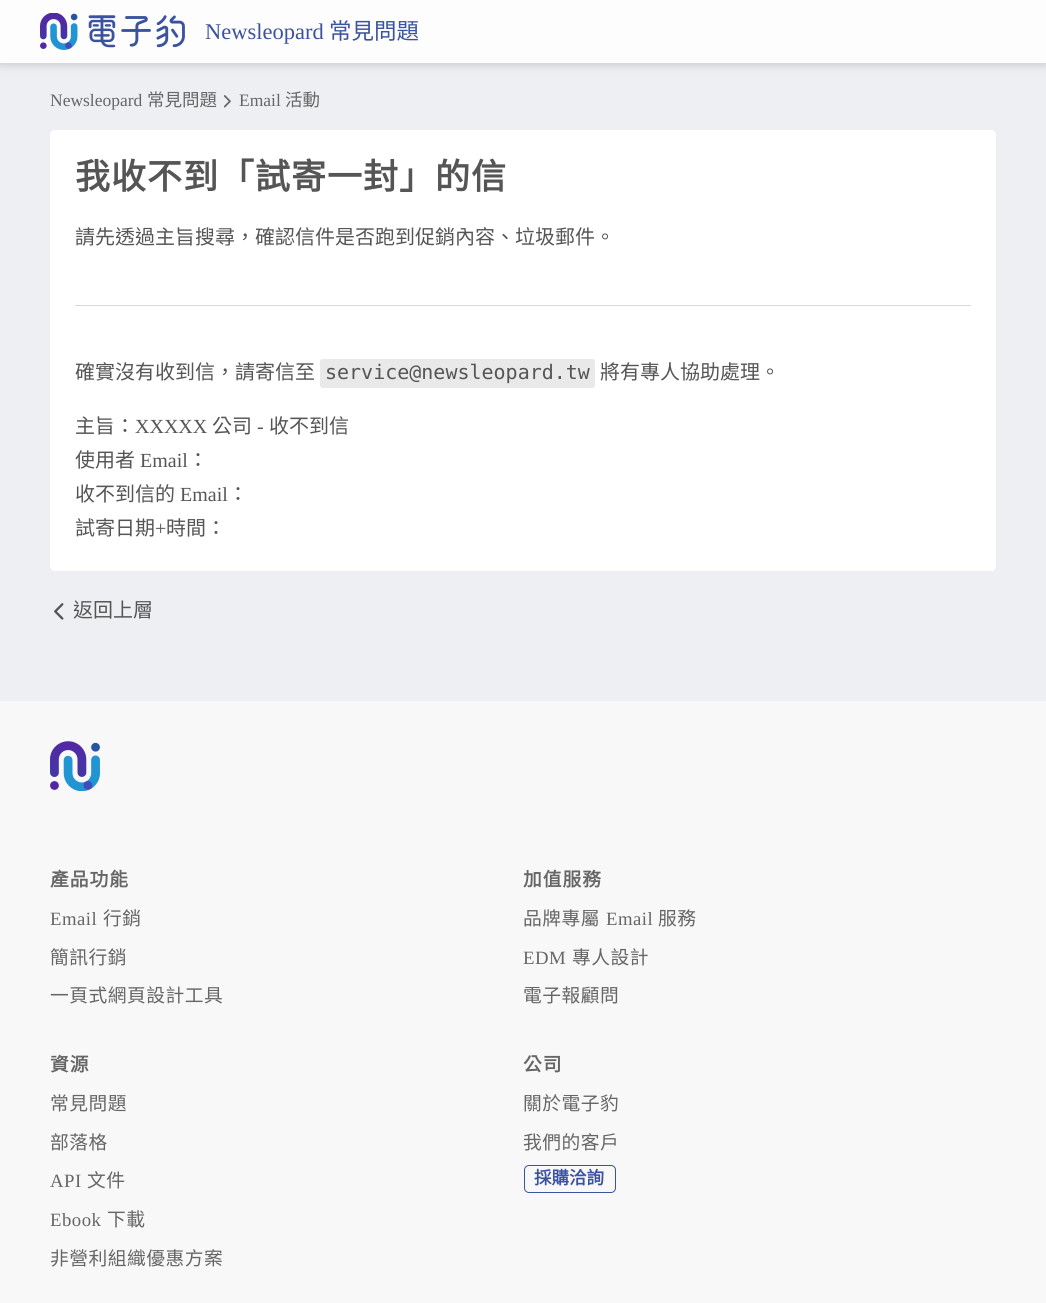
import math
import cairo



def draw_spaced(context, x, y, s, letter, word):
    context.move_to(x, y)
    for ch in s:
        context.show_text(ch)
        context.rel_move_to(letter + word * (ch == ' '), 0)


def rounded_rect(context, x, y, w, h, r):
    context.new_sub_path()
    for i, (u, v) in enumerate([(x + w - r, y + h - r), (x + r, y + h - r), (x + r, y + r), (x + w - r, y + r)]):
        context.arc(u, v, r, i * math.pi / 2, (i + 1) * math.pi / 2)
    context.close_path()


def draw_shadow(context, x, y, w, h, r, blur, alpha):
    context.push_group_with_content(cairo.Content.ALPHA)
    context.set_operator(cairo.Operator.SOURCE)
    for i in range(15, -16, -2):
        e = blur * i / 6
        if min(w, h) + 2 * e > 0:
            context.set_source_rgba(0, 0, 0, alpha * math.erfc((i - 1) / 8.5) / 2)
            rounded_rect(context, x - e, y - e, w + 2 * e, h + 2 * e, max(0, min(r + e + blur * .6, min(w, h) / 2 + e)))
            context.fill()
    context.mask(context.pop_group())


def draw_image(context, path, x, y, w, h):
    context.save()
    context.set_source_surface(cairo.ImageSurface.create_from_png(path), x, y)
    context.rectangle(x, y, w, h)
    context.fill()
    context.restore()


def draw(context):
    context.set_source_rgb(237 / 255, 239 / 255, 242 / 255)
    context.paint()
    context.save()
    context.set_fill_rule(cairo.FillRule.EVEN_ODD)
    context.new_path()
    context.move_to(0, 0)
    context.line_to(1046, 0)
    context.line_to(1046, 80)
    context.line_to(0, 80)
    context.close_path()
    context.move_to(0, 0)
    context.line_to(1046, 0)
    context.line_to(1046, 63)
    context.line_to(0, 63)
    context.close_path()
    context.clip()
    context.set_source_rgb(0, 0, 0)
    draw_shadow(context, 0, 1, 1046, 63, 0, 5, 0.19)
    context.restore()
    context.set_source_rgba(1, 1, 1, 0.9)
    context.rectangle(0, 0, 1046, 63)
    context.fill()
    draw_image(context, "images/1.png", 40, 13, 145, 37)
    draw_image(context, "images/2.png", 224, 95, 7, 13)
    context.set_source_rgb(1, 1, 1)
    rounded_rect(context, 50, 130, 946, 441, 5)
    context.fill()
    context.set_source_rgb(214 / 255, 218 / 255, 223 / 255)
    context.rectangle(75, 305, 896, 1)
    context.fill()
    context.set_source_rgb(233 / 255, 233 / 255, 233 / 255)
    rounded_rect(context, 320, 359, 275, 29, 2.5)
    context.fill()
    draw_image(context, "images/3.png", 54, 603, 10, 17)
    context.set_source_rgb(248 / 255, 248 / 255, 248 / 255)
    context.rectangle(0, 701, 1046, 602)
    context.fill()
    draw_image(context, "images/4.png", 50, 741, 50, 50)
    rounded_rect(context, 524.5, 1165.5, 91, 27, 4.5)
    context.set_source_rgb(59 / 255, 82 / 255, 159 / 255)
    context.set_line_width(1)
    context.stroke()
    context.select_font_face("Liberation Serif")
    context.set_font_size(22.5)
    context.move_to(205, 39)
    context.show_text("Newsleopard")
    context.select_font_face("Noto Sans CJK TC")
    context.move_to(329, 39)
    context.show_text("常見問題")
    context.select_font_face("Liberation Serif")
    context.set_font_size(17.5)
    context.set_source_rgb(102 / 255, 102 / 255, 102 / 255)
    context.move_to(50, 106)
    context.show_text("Newsleopard")
    context.select_font_face("Noto Sans CJK TC")
    context.move_to(147, 106)
    context.show_text("常見問題")
    context.select_font_face("Liberation Serif")
    context.move_to(239, 106)
    context.show_text("Email")
    context.select_font_face("Noto Sans CJK TC")
    context.move_to(285, 106)
    context.show_text("活動")
    context.select_font_face("Noto Sans CJK TC", cairo.FontSlant.NORMAL, cairo.FontWeight.BOLD)
    context.set_font_size(35)
    context.set_source_rgb(85 / 255, 85 / 255, 85 / 255)
    draw_spaced(context, 75, 189, "我收不到「試寄一封」的信", 1, 0)
    context.select_font_face("Noto Sans CJK TC")
    context.set_font_size(20)
    context.move_to(75, 244)
    context.show_text("請先透過主旨搜尋，確認信件是否跑到促銷內容、垃圾郵件。")
    context.move_to(75, 379)
    context.show_text("確實沒有收到信，請寄信至")
    context.select_font_face("DejaVu Sans Mono")
    context.move_to(325, 379)
    context.show_text("service@newsleopard.tw")
    context.select_font_face("Noto Sans CJK TC")
    context.move_to(600, 379)
    context.show_text("將有專人協助處理。")
    context.move_to(75, 433)
    context.show_text("主旨：")
    context.select_font_face("Liberation Serif")
    context.move_to(135, 433)
    context.show_text("XXXXX")
    context.select_font_face("Noto Sans CJK TC")
    context.move_to(212, 433)
    context.show_text("公司")
    context.select_font_face("Liberation Serif")
    context.move_to(257, 433)
    context.show_text("-")
    context.select_font_face("Noto Sans CJK TC")
    context.move_to(269, 433)
    context.show_text("收不到信")
    context.move_to(75, 467)
    context.show_text("使用者")
    context.select_font_face("Liberation Serif")
    context.move_to(140, 467)
    context.show_text("Email")
    context.select_font_face("Noto Sans CJK TC")
    context.move_to(188, 467)
    context.show_text("：")
    context.move_to(75, 501)
    context.show_text("收不到信的")
    context.select_font_face("Liberation Serif")
    context.move_to(180, 501)
    context.show_text("Email")
    context.select_font_face("Noto Sans CJK TC")
    context.move_to(228, 501)
    context.show_text("：")
    context.move_to(75, 535)
    context.show_text("試寄日期")
    context.select_font_face("Liberation Serif")
    context.move_to(155, 535)
    context.show_text("+")
    context.select_font_face("Noto Sans CJK TC")
    context.move_to(166, 535)
    context.show_text("時間：")
    context.move_to(73, 617)
    context.show_text("返回上層")
    context.select_font_face("Noto Sans CJK TC", cairo.FontSlant.NORMAL, cairo.FontWeight.BOLD)
    context.set_font_size(18.75)
    context.set_source_rgb(102 / 255, 102 / 255, 102 / 255)
    draw_spaced(context, 50, 886, "產品功能", 1, 0)
    context.select_font_face("Liberation Serif")
    draw_spaced(context, 50, 925, "Email", 0.5, 0)
    context.select_font_face("Noto Sans CJK TC")
    draw_spaced(context, 103, 925, "行銷", 0.5, 0)
    draw_spaced(context, 50, 964, "簡訊行銷", 0.5, 0)
    draw_spaced(context, 50, 1002, "一頁式網頁設計工具", 0.5, 0)
    context.select_font_face("Noto Sans CJK TC", cairo.FontSlant.NORMAL, cairo.FontWeight.BOLD)
    draw_spaced(context, 523, 886, "加值服務", 1, 0)
    context.select_font_face("Noto Sans CJK TC")
    draw_spaced(context, 523, 925, "品牌專屬", 0.5, 0)
    context.select_font_face("Liberation Serif")
    draw_spaced(context, 606, 925, "Email", 0.5, 0)
    context.select_font_face("Noto Sans CJK TC")
    draw_spaced(context, 658, 925, "服務", 0.5, 0)
    context.select_font_face("Liberation Serif")
    draw_spaced(context, 523, 964, "EDM", 0.5, 0)
    context.select_font_face("Noto Sans CJK TC")
    draw_spaced(context, 572, 964, "專人設計", 0.5, 0)
    draw_spaced(context, 523, 1002, "電子報顧問", 0.5, 0)
    context.select_font_face("Noto Sans CJK TC", cairo.FontSlant.NORMAL, cairo.FontWeight.BOLD)
    draw_spaced(context, 50, 1071, "資源", 1, 0)
    context.select_font_face("Noto Sans CJK TC")
    draw_spaced(context, 50, 1110, "常見問題", 0.5, 0)
    draw_spaced(context, 50, 1149, "部落格", 0.5, 0)
    context.select_font_face("Liberation Serif")
    draw_spaced(context, 50, 1187, "API", 0.5, 0)
    context.select_font_face("Noto Sans CJK TC")
    draw_spaced(context, 87, 1187, "文件", 0.5, 0)
    context.select_font_face("Liberation Serif")
    draw_spaced(context, 50, 1226, "Ebook", 0.5, 0)
    context.select_font_face("Noto Sans CJK TC")
    draw_spaced(context, 107, 1226, "下載", 0.5, 0)
    draw_spaced(context, 50, 1265, "非營利組織優惠方案", 0.5, 0)
    context.select_font_face("Noto Sans CJK TC", cairo.FontSlant.NORMAL, cairo.FontWeight.BOLD)
    draw_spaced(context, 523, 1071, "公司", 1, 0)
    context.select_font_face("Noto Sans CJK TC")
    draw_spaced(context, 523, 1110, "關於電子豹", 0.5, 0)
    draw_spaced(context, 523, 1149, "我們的客戶", 0.5, 0)
    context.select_font_face("Noto Sans CJK TC", cairo.FontSlant.NORMAL, cairo.FontWeight.BOLD)
    context.set_font_size(17.5)
    context.set_source_rgb(59 / 255, 82 / 255, 159 / 255)
    context.move_to(534, 1184)
    context.show_text("採購洽詢")


surface = cairo.ImageSurface(cairo.Format.RGB24, 1046, 1303)
context = cairo.Context(surface)
options = cairo.FontOptions()
options.set_hint_metrics(cairo.HintMetrics.OFF)
options.set_hint_style(cairo.HintStyle.NONE)
context.set_font_options(options)
context.set_miter_limit(4)
draw(context)
surface.write_to_png("out.png")
